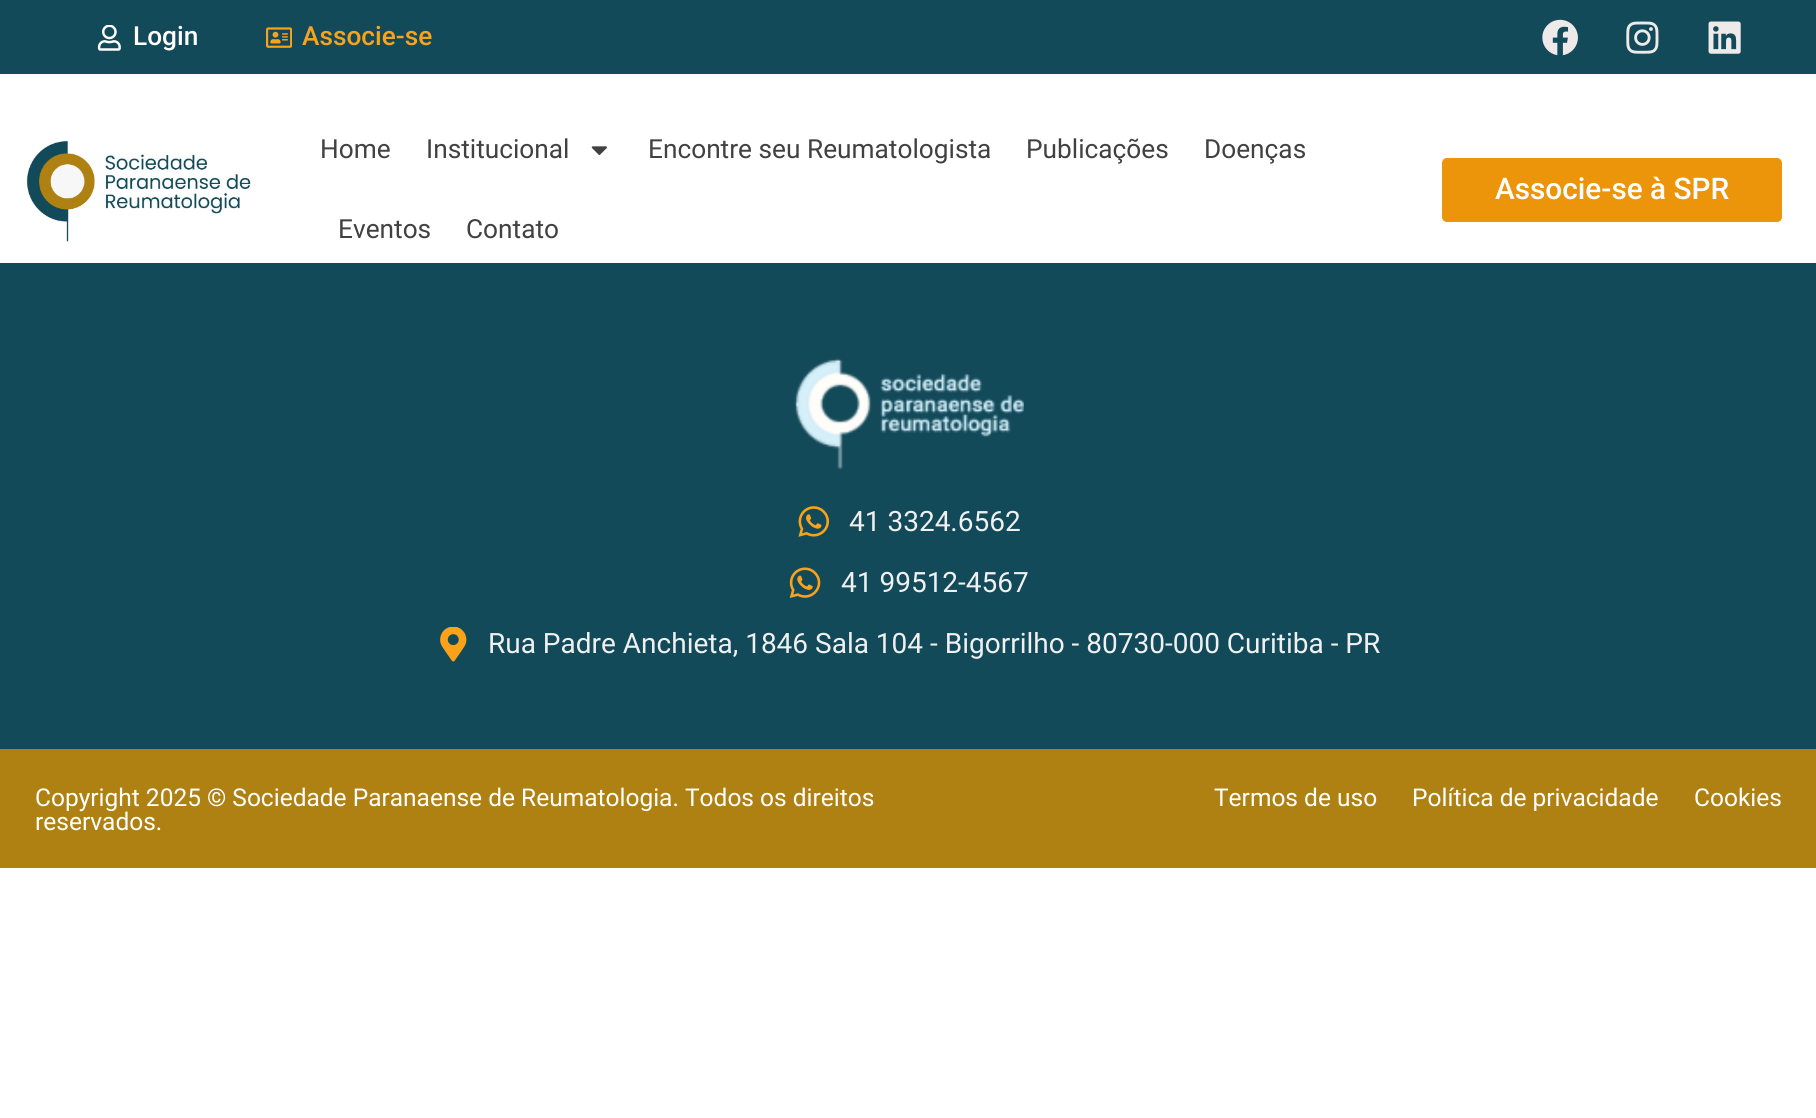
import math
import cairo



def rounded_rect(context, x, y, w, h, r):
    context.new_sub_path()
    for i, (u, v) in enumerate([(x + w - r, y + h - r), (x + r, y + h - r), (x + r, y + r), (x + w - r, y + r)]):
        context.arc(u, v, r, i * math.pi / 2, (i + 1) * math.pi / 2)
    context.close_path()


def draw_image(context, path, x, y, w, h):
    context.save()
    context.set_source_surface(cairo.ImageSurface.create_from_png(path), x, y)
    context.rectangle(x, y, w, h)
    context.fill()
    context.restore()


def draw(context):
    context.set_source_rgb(1, 1, 1)
    context.paint()
    context.set_source_rgb(18 / 255, 74 / 255, 89 / 255)
    context.rectangle(0, 0, 1816, 74)
    context.fill()
    draw_image(context, "images/1.png", 97, 25, 24, 26)
    draw_image(context, "images/2.png", 266, 27, 26, 21)
    draw_image(context, "images/3.png", 1542, 19, 36, 37)
    draw_image(context, "images/4.png", 1626, 21, 33, 33)
    draw_image(context, "images/5.png", 1708, 21, 33, 33)
    draw_image(context, "images/6.png", 26, 140, 225, 102)
    draw_image(context, "images/7.png", 591, 146, 16, 9)
    context.set_source_rgb(236 / 255, 148 / 255, 10 / 255)
    rounded_rect(context, 1442, 158, 340, 64, 5)
    context.fill()
    context.set_source_rgb(18 / 255, 74 / 255, 89 / 255)
    context.rectangle(0, 263, 1816, 486)
    context.fill()
    draw_image(context, "images/8.png", 794, 358, 230, 111)
    draw_image(context, "images/9.png", 798, 506, 32, 31)
    draw_image(context, "images/10.png", 789, 567, 32, 31)
    draw_image(context, "images/11.png", 440, 627, 27, 35)
    context.set_source_rgb(175 / 255, 129 / 255, 18 / 255)
    context.rectangle(0, 749, 1816, 119)
    context.fill()
    context.select_font_face("Roboto Medium")
    context.set_font_size(26.25)
    context.set_source_rgb(1, 1, 1)
    context.move_to(133, 45)
    context.show_text("Login")
    context.set_source_rgb(250 / 255, 163 / 255, 26 / 255)
    context.move_to(302, 45)
    context.show_text("Associe-se")
    context.select_font_face("Roboto")
    context.set_source_rgb(66 / 255, 65 / 255, 65 / 255)
    context.move_to(320, 158)
    context.show_text("Home")
    context.move_to(426, 158)
    context.show_text("Institucional")
    context.move_to(648, 158)
    context.show_text("Encontre seu Reumatologista")
    context.move_to(1026, 158)
    context.show_text("Publicações")
    context.move_to(1204, 158)
    context.show_text("Doenças")
    context.move_to(338, 238)
    context.show_text("Eventos")
    context.move_to(466, 238)
    context.show_text("Contato")
    context.select_font_face("Roboto Medium")
    context.set_font_size(29.75)
    context.set_source_rgb(1, 1, 1)
    context.move_to(1495, 199)
    context.show_text("Associe-se à SPR")
    context.select_font_face("Roboto")
    context.set_font_size(28)
    context.set_source_rgb(240 / 255, 240 / 255, 240 / 255)
    context.move_to(849, 531)
    context.show_text("41 3324.6562")
    context.move_to(841, 592)
    context.show_text("41 99512-4567")
    context.move_to(488, 653)
    context.show_text("Rua Padre Anchieta, 1846 Sala 104 - Bigorrilho - 80730-000 Curitiba - PR")
    context.set_font_size(24.5)
    context.set_source_rgb(1, 1, 1)
    context.move_to(35, 806)
    context.show_text("Copyright 2025 © Sociedade Paranaense de Reumatologia. Todos os direitos")
    context.move_to(35, 830)
    context.show_text("reservados.")
    context.move_to(1214, 806)
    context.show_text("Termos de uso")
    context.move_to(1412, 806)
    context.show_text("Política de privacidade")
    context.move_to(1694, 806)
    context.show_text("Cookies")


surface = cairo.ImageSurface(cairo.Format.RGB24, 1816, 1118)
context = cairo.Context(surface)
options = cairo.FontOptions()
options.set_hint_metrics(cairo.HintMetrics.OFF)
options.set_hint_style(cairo.HintStyle.NONE)
context.set_font_options(options)
context.set_miter_limit(4)
draw(context)
surface.write_to_png("out.png")
